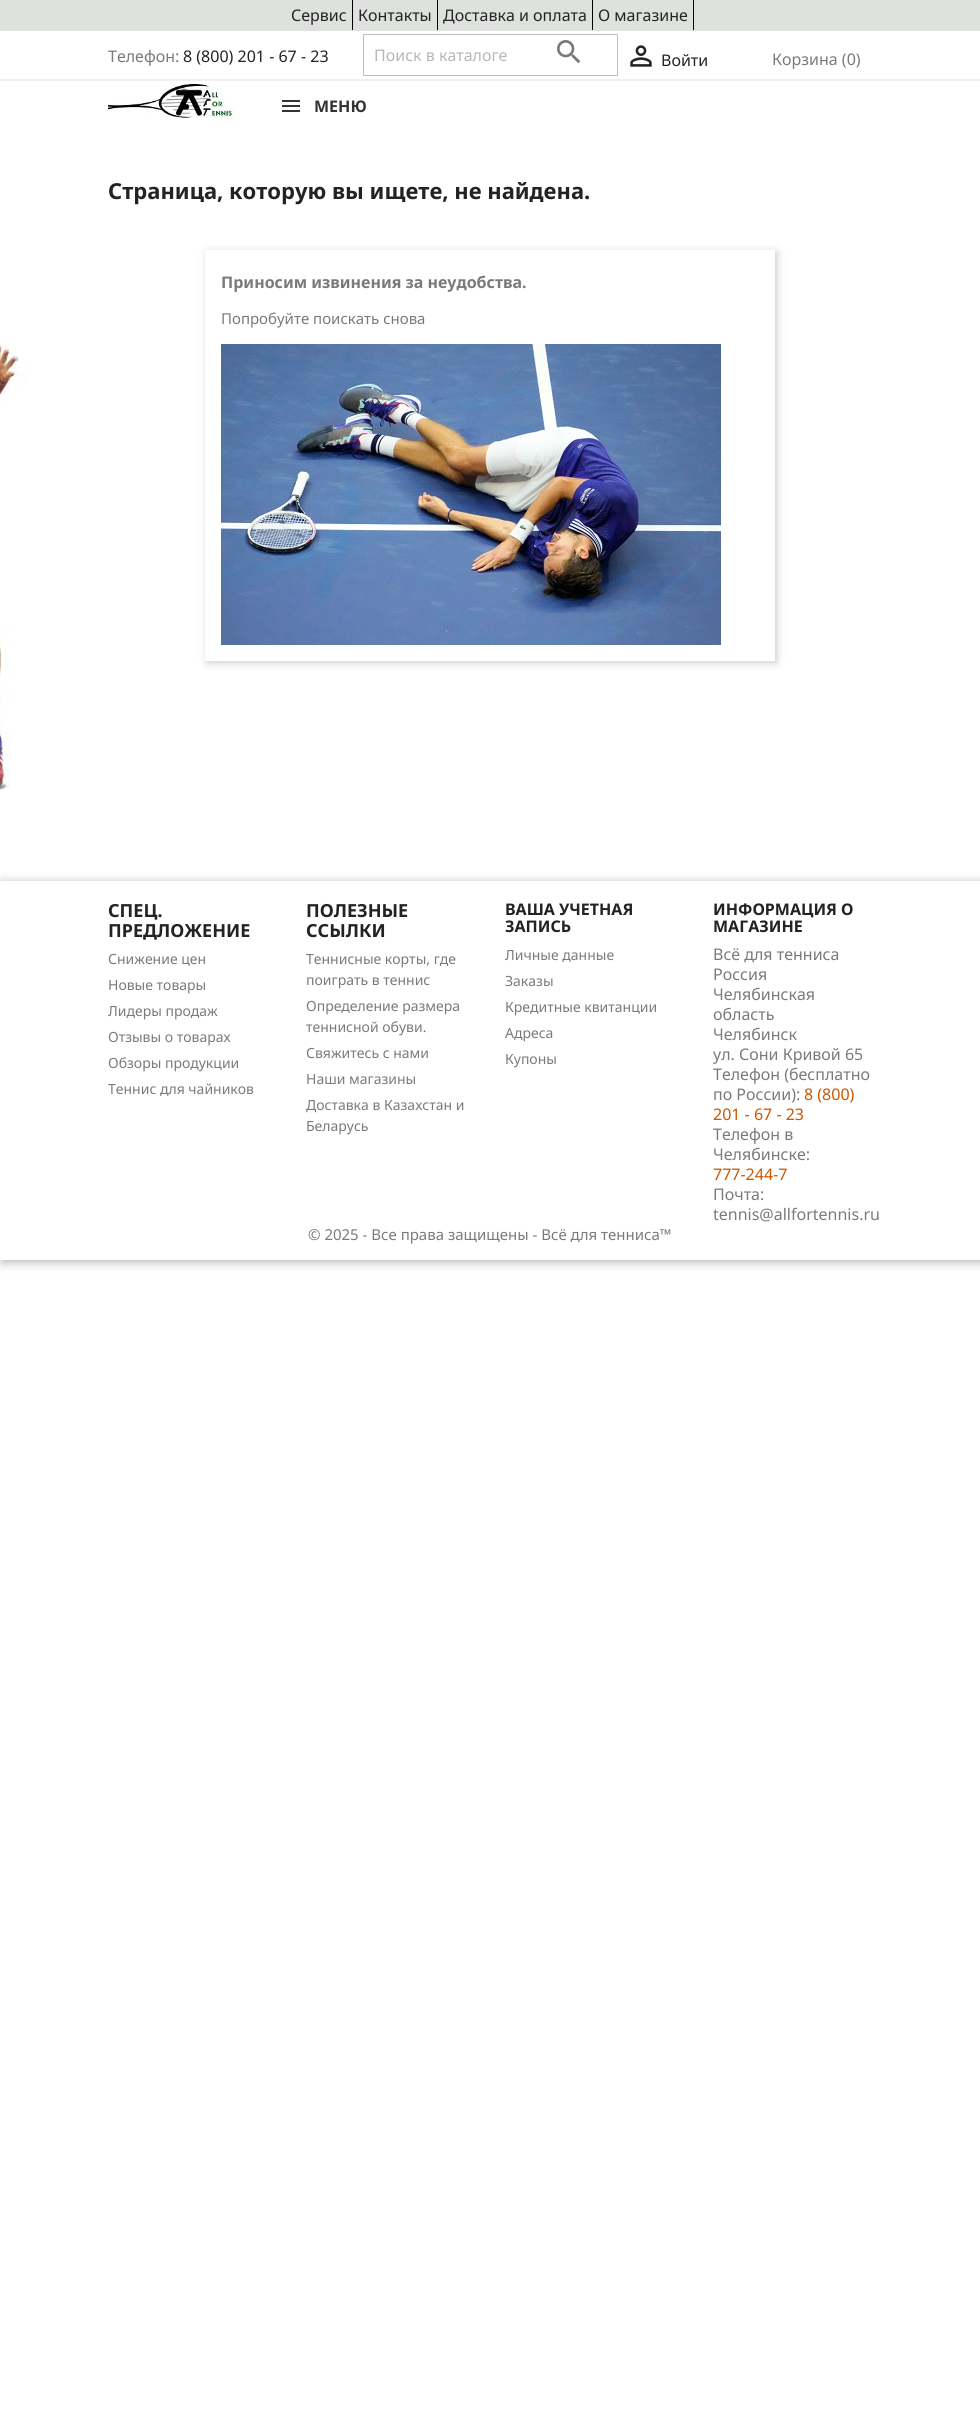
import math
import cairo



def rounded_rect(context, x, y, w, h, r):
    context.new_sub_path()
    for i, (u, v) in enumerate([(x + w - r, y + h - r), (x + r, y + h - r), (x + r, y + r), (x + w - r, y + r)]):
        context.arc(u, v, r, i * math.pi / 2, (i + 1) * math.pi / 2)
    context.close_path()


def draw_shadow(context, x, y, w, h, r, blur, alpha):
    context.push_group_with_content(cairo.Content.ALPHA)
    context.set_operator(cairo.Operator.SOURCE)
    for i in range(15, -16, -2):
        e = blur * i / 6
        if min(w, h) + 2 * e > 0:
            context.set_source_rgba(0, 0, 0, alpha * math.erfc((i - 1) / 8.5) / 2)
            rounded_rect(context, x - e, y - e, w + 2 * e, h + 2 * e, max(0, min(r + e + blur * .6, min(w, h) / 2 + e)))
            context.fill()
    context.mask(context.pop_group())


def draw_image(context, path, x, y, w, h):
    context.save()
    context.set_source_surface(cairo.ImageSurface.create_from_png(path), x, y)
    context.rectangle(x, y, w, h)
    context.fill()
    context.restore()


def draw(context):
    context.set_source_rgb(1, 1, 1)
    context.paint()
    context.set_source_rgb(222 / 255, 225 / 255, 222 / 255)
    context.rectangle(0, 0, 980, 31)
    context.fill()
    context.set_source_rgb(0, 0, 0)
    context.rectangle(352, 0, 1, 30)
    context.fill()
    context.rectangle(437, 0, 1, 30)
    context.fill()
    context.rectangle(592, 0, 1, 30)
    context.fill()
    context.rectangle(693, 0, 1, 30)
    context.fill()
    context.set_source_rgb(241 / 255, 241 / 255, 241 / 255)
    context.rectangle(0, 79, 980, 2)
    context.fill()
    context.rectangle(363.5, 34.5, 254, 41)
    context.set_source_rgb(191 / 255, 191 / 255, 191 / 255)
    context.set_line_width(1)
    context.stroke()
    draw_image(context, "images/1.png", 557, 40, 24, 24)
    draw_image(context, "images/2.png", 630, 45, 22, 22)
    draw_image(context, "images/3.png", 108, 83, 127, 38)
    context.set_source_rgb(51 / 255, 51 / 255, 51 / 255)
    context.rectangle(282, 100, 18, 2)
    context.fill()
    context.rectangle(282, 105, 18, 2)
    context.fill()
    context.rectangle(282, 110, 18, 2)
    context.fill()
    draw_image(context, "images/4.png", 0, 338, 26, 453)
    context.save()
    context.set_fill_rule(cairo.FillRule.EVEN_ODD)
    context.new_path()
    context.move_to(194, 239)
    context.line_to(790, 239)
    context.line_to(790, 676)
    context.line_to(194, 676)
    context.close_path()
    context.move_to(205, 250)
    context.line_to(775, 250)
    context.line_to(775, 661)
    context.line_to(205, 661)
    context.close_path()
    context.clip()
    context.set_source_rgb(0, 0, 0)
    draw_shadow(context, 207, 252, 570, 411, 0, 4, 0.2)
    context.restore()
    draw_image(context, "images/5.png", 221, 344, 500, 301)
    context.save()
    context.set_fill_rule(cairo.FillRule.EVEN_ODD)
    context.new_path()
    context.move_to(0, 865)
    context.line_to(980, 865)
    context.line_to(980, 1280)
    context.line_to(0, 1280)
    context.close_path()
    context.move_to(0, 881)
    context.line_to(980, 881)
    context.line_to(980, 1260)
    context.line_to(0, 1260)
    context.close_path()
    context.clip()
    context.set_source_rgb(0, 0, 0)
    draw_shadow(context, 2, 883, 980, 379, 0, 5.5, 0.3)
    context.restore()
    context.select_font_face("Noto Sans")
    context.set_font_size(16)
    context.set_source_rgb(35 / 255, 35 / 255, 35 / 255)
    context.move_to(291, 21)
    context.show_text("Сервис")
    context.move_to(358, 21)
    context.show_text("Контакты")
    context.move_to(443, 21)
    context.show_text("Доставка и оплата")
    context.move_to(598, 21)
    context.show_text("О магазине")
    context.set_source_rgb(122 / 255, 122 / 255, 122 / 255)
    context.move_to(108, 62)
    context.show_text("Телефон:")
    context.set_source_rgb(35 / 255, 35 / 255, 35 / 255)
    context.move_to(183, 62)
    context.show_text("8 (800) 201 - 67 - 23")
    context.set_source_rgb(183 / 255, 183 / 255, 183 / 255)
    context.move_to(374, 61)
    context.show_text("Поиск в каталоге")
    context.set_source_rgb(35 / 255, 35 / 255, 35 / 255)
    context.move_to(661, 66)
    context.show_text("Войти")
    context.set_source_rgb(122 / 255, 122 / 255, 122 / 255)
    context.move_to(772, 65)
    context.show_text("Корзина (0)")
    context.select_font_face("Noto Sans", cairo.FontSlant.NORMAL, cairo.FontWeight.BOLD)
    context.set_source_rgb(51 / 255, 51 / 255, 51 / 255)
    context.move_to(314, 112)
    context.show_text("МЕНЮ")
    context.set_font_size(22)
    context.set_source_rgb(35 / 255, 35 / 255, 35 / 255)
    context.move_to(108, 199)
    context.show_text("Страница, которую вы ищете, не найдена.")
    context.set_font_size(16)
    context.set_source_rgb(122 / 255, 122 / 255, 122 / 255)
    context.move_to(221, 288)
    context.show_text("Приносим извинения за неудобства.")
    context.select_font_face("Noto Sans")
    context.set_font_size(15)
    context.move_to(221, 324)
    context.show_text("Попробуйте поискать снова")
    context.select_font_face("Noto Sans", cairo.FontSlant.NORMAL, cairo.FontWeight.BOLD)
    context.set_font_size(18)
    context.set_source_rgb(35 / 255, 35 / 255, 35 / 255)
    context.move_to(108, 917)
    context.show_text("СПЕЦ.")
    context.move_to(108, 937)
    context.show_text("ПРЕДЛОЖЕНИЕ")
    context.select_font_face("Noto Sans")
    context.set_font_size(14)
    context.set_source_rgb(122 / 255, 122 / 255, 122 / 255)
    context.move_to(108, 964)
    context.show_text("Снижение цен")
    context.move_to(108, 990)
    context.show_text("Новые товары")
    context.move_to(108, 1016)
    context.show_text("Лидеры продаж")
    context.move_to(108, 1042)
    context.show_text("Отзывы о товарах")
    context.move_to(108, 1068)
    context.show_text("Обзоры продукции")
    context.move_to(108, 1094)
    context.show_text("Теннис для чайников")
    context.select_font_face("Noto Sans", cairo.FontSlant.NORMAL, cairo.FontWeight.BOLD)
    context.set_font_size(18)
    context.set_source_rgb(35 / 255, 35 / 255, 35 / 255)
    context.move_to(306, 917)
    context.show_text("ПОЛЕЗНЫЕ")
    context.move_to(306, 937)
    context.show_text("ССЫЛКИ")
    context.select_font_face("Noto Sans")
    context.set_font_size(14)
    context.set_source_rgb(122 / 255, 122 / 255, 122 / 255)
    context.move_to(306, 964)
    context.show_text("Теннисные корты, где")
    context.move_to(306, 985)
    context.show_text("поиграть в теннис")
    context.move_to(306, 1011)
    context.show_text("Определение размера")
    context.move_to(306, 1032)
    context.show_text("теннисной обуви.")
    context.move_to(306, 1058)
    context.show_text("Свяжитесь с нами")
    context.move_to(306, 1084)
    context.show_text("Наши магазины")
    context.move_to(306, 1110)
    context.show_text("Доставка в Казахстан и")
    context.move_to(306, 1131)
    context.show_text("Беларусь")
    context.select_font_face("Noto Sans", cairo.FontSlant.NORMAL, cairo.FontWeight.BOLD)
    context.set_font_size(16)
    context.set_source_rgb(35 / 255, 35 / 255, 35 / 255)
    context.move_to(505, 915)
    context.show_text("ВАША УЧЕТНАЯ")
    context.move_to(505, 932)
    context.show_text("ЗАПИСЬ")
    context.select_font_face("Noto Sans")
    context.set_font_size(14)
    context.set_source_rgb(122 / 255, 122 / 255, 122 / 255)
    context.move_to(505, 960)
    context.show_text("Личные данные")
    context.move_to(505, 986)
    context.show_text("Заказы")
    context.move_to(505, 1012)
    context.show_text("Кредитные квитанции")
    context.move_to(505, 1038)
    context.show_text("Адреса")
    context.move_to(505, 1064)
    context.show_text("Купоны")
    context.select_font_face("Noto Sans", cairo.FontSlant.NORMAL, cairo.FontWeight.BOLD)
    context.set_font_size(16)
    context.set_source_rgb(35 / 255, 35 / 255, 35 / 255)
    context.move_to(713, 915)
    context.show_text("ИНФОРМАЦИЯ О")
    context.move_to(713, 932)
    context.show_text("МАГАЗИНЕ")
    context.select_font_face("Noto Sans")
    context.set_source_rgb(122 / 255, 122 / 255, 122 / 255)
    context.move_to(713, 960)
    context.show_text("Всё для тенниса")
    context.move_to(713, 980)
    context.show_text("Россия")
    context.move_to(713, 1000)
    context.show_text("Челябинская")
    context.move_to(713, 1020)
    context.show_text("область")
    context.move_to(713, 1040)
    context.show_text("Челябинск")
    context.move_to(713, 1060)
    context.show_text("ул. Сони Кривой 65")
    context.move_to(713, 1080)
    context.show_text("Телефон (бесплатно")
    context.move_to(713, 1100)
    context.show_text("по России):")
    context.set_source_rgb(205 / 255, 87 / 255, 0)
    context.move_to(804, 1100)
    context.show_text("8 (800)")
    context.move_to(713, 1120)
    context.show_text("201 - 67 - 23")
    context.set_source_rgb(122 / 255, 122 / 255, 122 / 255)
    context.move_to(713, 1140)
    context.show_text("Телефон в")
    context.move_to(713, 1160)
    context.show_text("Челябинске:")
    context.set_source_rgb(205 / 255, 87 / 255, 0)
    context.move_to(713, 1180)
    context.show_text("777-244-7")
    context.set_source_rgb(122 / 255, 122 / 255, 122 / 255)
    context.move_to(713, 1200)
    context.show_text("Почта:")
    context.move_to(713, 1220)
    context.show_text("tennis@allfortennis.ru")
    context.set_font_size(15)
    context.move_to(308, 1240)
    context.show_text("© 2025 - Все права защищены - Всё для тенниса™")


surface = cairo.ImageSurface(cairo.Format.RGB24, 980, 2409)
context = cairo.Context(surface)
options = cairo.FontOptions()
options.set_hint_metrics(cairo.HintMetrics.OFF)
options.set_hint_style(cairo.HintStyle.NONE)
context.set_font_options(options)
context.set_miter_limit(4)
draw(context)
surface.write_to_png("out.png")
